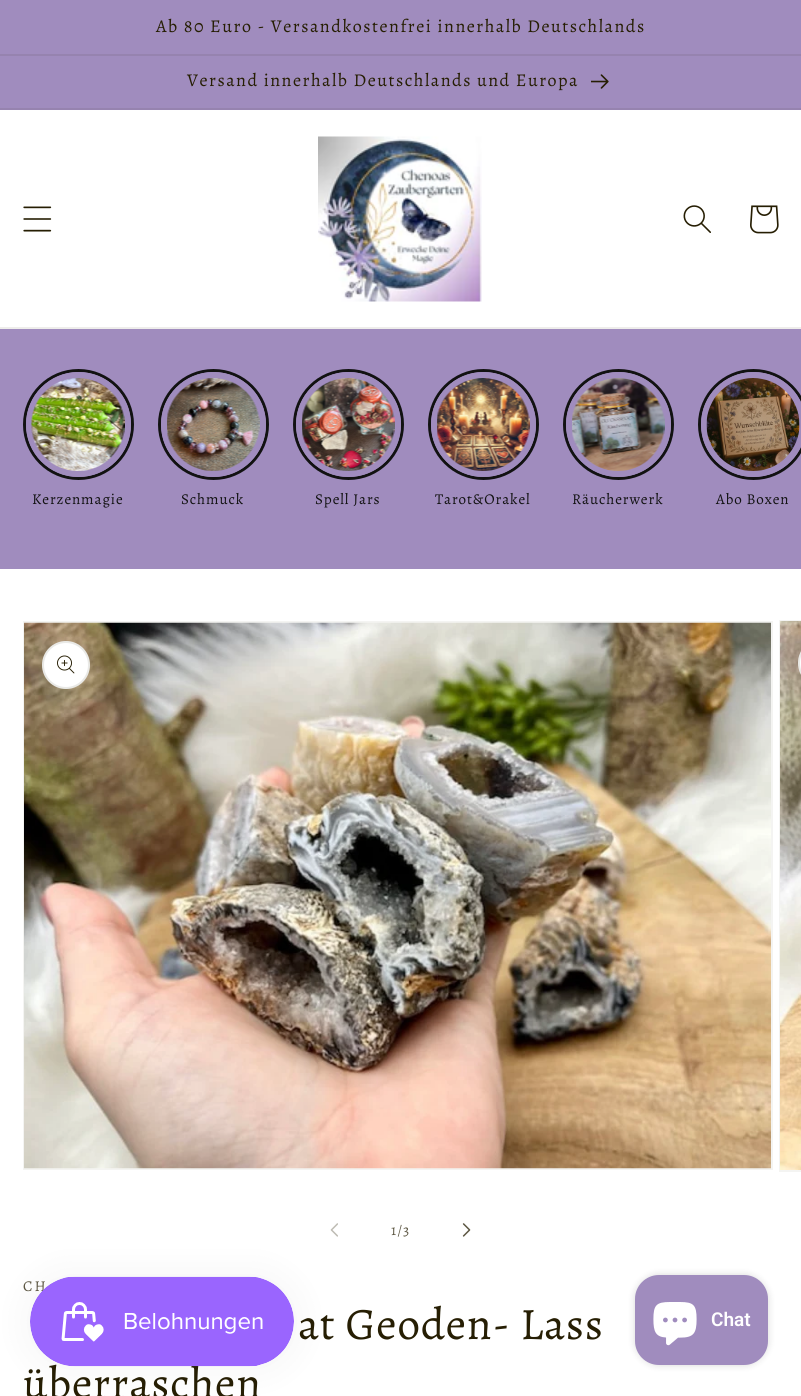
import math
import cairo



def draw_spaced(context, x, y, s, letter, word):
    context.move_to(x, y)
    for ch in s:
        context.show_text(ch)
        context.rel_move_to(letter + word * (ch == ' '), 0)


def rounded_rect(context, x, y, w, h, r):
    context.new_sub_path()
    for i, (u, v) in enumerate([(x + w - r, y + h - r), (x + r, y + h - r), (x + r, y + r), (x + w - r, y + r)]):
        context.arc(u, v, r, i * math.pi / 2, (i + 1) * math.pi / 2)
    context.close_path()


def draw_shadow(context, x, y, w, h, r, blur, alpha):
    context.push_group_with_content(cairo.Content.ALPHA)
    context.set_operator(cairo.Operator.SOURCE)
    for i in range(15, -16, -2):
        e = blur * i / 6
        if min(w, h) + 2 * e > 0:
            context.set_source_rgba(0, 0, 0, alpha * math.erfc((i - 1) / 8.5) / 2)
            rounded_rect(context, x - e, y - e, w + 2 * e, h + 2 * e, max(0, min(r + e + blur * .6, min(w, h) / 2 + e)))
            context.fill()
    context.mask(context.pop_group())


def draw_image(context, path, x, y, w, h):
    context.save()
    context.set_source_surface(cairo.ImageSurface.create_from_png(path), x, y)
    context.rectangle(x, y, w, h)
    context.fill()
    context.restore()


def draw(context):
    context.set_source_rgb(1, 1, 1)
    context.paint()
    context.set_source_rgb(160 / 255, 140 / 255, 190 / 255)
    context.rectangle(0, 0, 801, 54)
    context.fill()
    context.set_source_rgb(150 / 255, 131 / 255, 175 / 255)
    context.rectangle(0, 54, 801, 2)
    context.fill()
    context.set_source_rgb(160 / 255, 140 / 255, 190 / 255)
    context.rectangle(0, 56, 801, 52)
    context.fill()
    context.set_source_rgb(150 / 255, 131 / 255, 175 / 255)
    context.rectangle(0, 108, 801, 2)
    context.fill()
    draw_image(context, "images/1.png", 591, 74, 18, 15)
    context.set_source_rgb(238 / 255, 237 / 255, 235 / 255)
    context.rectangle(0, 327, 801, 2)
    context.fill()
    draw_image(context, "images/2.png", 23, 206, 29, 26)
    draw_image(context, "images/3.png", 318, 136, 164, 166)
    draw_image(context, "images/4.png", 683, 205, 28, 28)
    draw_image(context, "images/5.png", 750, 205, 29, 29)
    context.set_source_rgb(160 / 255, 140 / 255, 190 / 255)
    context.rectangle(0, 329, 801, 240)
    context.fill()
    context.arc(78.5, 424.5, 54, 0, 2 * math.pi)
    context.set_source_rgb(18 / 255, 18 / 255, 18 / 255)
    context.set_line_width(3)
    context.stroke()
    context.arc(78.5, 424.5, 49.5, 0, 2 * math.pi)
    context.set_source_rgb(160 / 255, 140 / 255, 190 / 255)
    context.set_line_width(6)
    context.stroke()
    draw_image(context, "images/6.png", 31, 378, 94, 93)
    context.arc(213.5, 424.5, 54, 0, 2 * math.pi)
    context.set_source_rgb(18 / 255, 18 / 255, 18 / 255)
    context.set_line_width(3)
    context.stroke()
    context.arc(213.5, 424.5, 49.5, 0, 2 * math.pi)
    context.set_source_rgb(160 / 255, 140 / 255, 190 / 255)
    context.set_line_width(6)
    context.stroke()
    draw_image(context, "images/7.png", 167, 378, 93, 93)
    context.arc(348.5, 424.5, 54, 0, 2 * math.pi)
    context.set_source_rgb(18 / 255, 18 / 255, 18 / 255)
    context.set_line_width(3)
    context.stroke()
    context.arc(348.5, 424.5, 49.5, 0, 2 * math.pi)
    context.set_source_rgb(160 / 255, 140 / 255, 190 / 255)
    context.set_line_width(6)
    context.stroke()
    draw_image(context, "images/8.png", 302, 378, 93, 93)
    context.arc(483.5, 424.5, 54, 0, 2 * math.pi)
    context.set_source_rgb(18 / 255, 18 / 255, 18 / 255)
    context.set_line_width(3)
    context.stroke()
    context.arc(483.5, 424.5, 49.5, 0, 2 * math.pi)
    context.set_source_rgb(160 / 255, 140 / 255, 190 / 255)
    context.set_line_width(6)
    context.stroke()
    draw_image(context, "images/9.png", 437, 378, 93, 93)
    context.arc(618.5, 424.5, 54, 0, 2 * math.pi)
    context.set_source_rgb(18 / 255, 18 / 255, 18 / 255)
    context.set_line_width(3)
    context.stroke()
    context.arc(618.5, 424.5, 49.5, 0, 2 * math.pi)
    context.set_source_rgb(160 / 255, 140 / 255, 190 / 255)
    context.set_line_width(6)
    context.stroke()
    draw_image(context, "images/10.png", 572, 378, 93, 93)
    context.arc(753.5, 424.5, 54, 0, 2 * math.pi)
    context.set_source_rgb(18 / 255, 18 / 255, 18 / 255)
    context.set_line_width(3)
    context.stroke()
    context.arc(753.5, 424.5, 49.5, 0, 2 * math.pi)
    context.set_source_rgb(160 / 255, 140 / 255, 190 / 255)
    context.set_line_width(6)
    context.stroke()
    draw_image(context, "images/11.png", 706, 378, 94, 93)
    draw_image(context, "images/16.png", 330, 1223, 8, 14)
    context.set_source_rgb(0, 0, 0)
    draw_shadow(context, 30, 1277, 264, 90, 45, 19, 0.05)
    context.rectangle(24, 622, 748, 547)
    context.set_source_rgb(244 / 255, 244 / 255, 242 / 255)
    context.set_line_width(2)
    context.stroke()
    draw_image(context, "images/13.png", 24, 622, 747, 547)
    context.set_source_rgb(1, 1, 1)
    context.arc(66, 665, 24, 0, 2 * math.pi)
    context.fill()
    context.arc(66, 665, 23, 0, 2 * math.pi)
    context.set_source_rgba(38 / 255, 30 / 255, 3 / 255, 0.1)
    context.stroke()
    draw_image(context, "images/14.png", 57, 655, 18, 19)
    context.rectangle(780, 621, 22, 550)
    context.set_source_rgb(244 / 255, 244 / 255, 242 / 255)
    context.stroke()
    draw_image(context, "images/15.png", 780, 621, 21, 549)
    context.set_source_rgb(1, 1, 1)
    context.new_path()
    context.move_to(822, 639)
    context.line_to(801, 639)
    context.line_to(801, 687)
    context.line_to(822, 687)
    context.curve_to(808.5, 687, 798, 676.5, 798, 663)
    context.curve_to(798, 649.5, 808.5, 639, 822, 639)
    context.close_path()
    context.fill()
    rounded_rect(context, 799, 640, 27, 46, 23)
    context.set_source_rgba(38 / 255, 30 / 255, 3 / 255, 0.1)
    context.stroke()
    draw_image(context, "images/17.png", 462, 1223, 9, 14)
    context.set_source_rgb(0, 0, 0)
    draw_shadow(context, 635, 1275, 133, 90, 24, 4, 0.15)
    context.set_source_rgb(160 / 255, 140 / 255, 190 / 255)
    rounded_rect(context, 635, 1275, 133, 90, 24)
    context.fill()
    draw_image(context, "images/18.png", 653, 1302, 44, 44)
    context.select_font_face("Alegreya")
    context.set_font_size(18)
    context.set_source_rgb(38 / 255, 30 / 255, 3 / 255)
    draw_spaced(context, 156, 32, "Ab 80 Euro - Versandkostenfrei innerhalb Deutschlands", 1.5, 0)
    draw_spaced(context, 187, 86, "Versand innerhalb Deutschlands und Europa", 1.5, 0)
    context.set_font_size(15)
    context.set_source_rgb(18 / 255, 18 / 255, 18 / 255)
    draw_spaced(context, 32, 504, "Kerzenmagie", 0.9, 0)
    draw_spaced(context, 181, 504, "Schmuck", 0.9, 0)
    draw_spaced(context, 315, 504, "Spell Jars", 0.9, 0)
    draw_spaced(context, 435, 504, "Tarot&Orakel", 0.9, 0)
    draw_spaced(context, 572, 504, "Räucherwerk", 0.9, 0)
    draw_spaced(context, 716, 504, "Abo Boxen", 0.9, 0)
    context.set_source_rgb(92 / 255, 86 / 255, 66 / 255)
    draw_spaced(context, 391, 1235, "1/3", 1, 0)
    draw_spaced(context, 23, 1291, "CH", 2, 0)
    context.set_font_size(45)
    context.set_source_rgb(38 / 255, 30 / 255, 3 / 255)
    draw_spaced(context, 298, 1339, "at Geoden- Lass", 0.9, 0)
    draw_spaced(context, 23, 1398, "überraschen", 0.9, 0)
    draw_image(context, "images/12.png", 30, 1276, 264, 91)
    context.select_font_face("Roboto SemiBold")
    context.set_font_size(19)
    context.set_source_rgb(1, 1, 1)
    context.move_to(711, 1326)
    context.show_text("Chat")


surface = cairo.ImageSurface(cairo.Format.RGB24, 801, 1396)
context = cairo.Context(surface)
options = cairo.FontOptions()
options.set_hint_metrics(cairo.HintMetrics.OFF)
options.set_hint_style(cairo.HintStyle.NONE)
context.set_font_options(options)
context.set_miter_limit(4)
draw(context)
surface.write_to_png("out.png")
